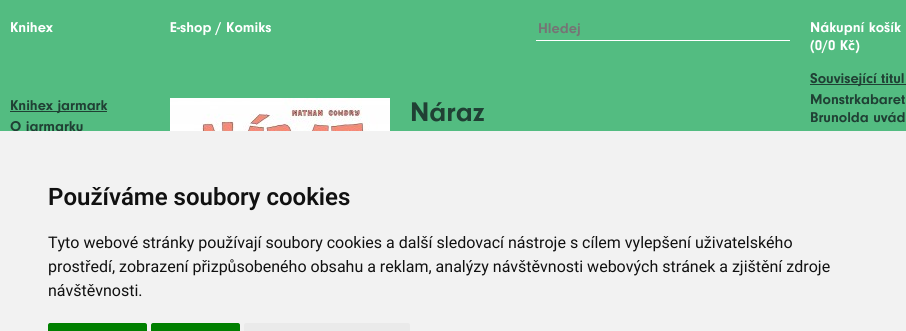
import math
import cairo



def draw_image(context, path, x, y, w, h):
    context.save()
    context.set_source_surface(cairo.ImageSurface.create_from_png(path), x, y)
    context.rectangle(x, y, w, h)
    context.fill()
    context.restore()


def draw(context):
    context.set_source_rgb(83 / 255, 188 / 255, 129 / 255)
    context.paint()
    context.set_source_rgb(32 / 255, 64 / 255, 52 / 255)
    context.rectangle(10, 111, 97, 1)
    context.fill()
    context.set_source_rgb(1, 1, 1)
    context.rectangle(536, 40, 254, 1)
    context.fill()
    draw_image(context, "images/1.png", 170, 98, 220, 33)
    context.set_source_rgb(32 / 255, 64 / 255, 52 / 255)
    context.rectangle(810, 84, 96, 1)
    context.fill()
    context.select_font_face("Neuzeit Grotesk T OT", cairo.FontSlant.NORMAL, cairo.FontWeight.BOLD)
    context.set_font_size(14.75)
    context.set_source_rgb(1, 1, 1)
    context.move_to(10, 32)
    context.show_text("Knihex")
    context.set_source_rgb(32 / 255, 64 / 255, 52 / 255)
    context.move_to(10, 110)
    context.show_text("Knihex jarmark")
    context.move_to(10, 131)
    context.show_text("O jarmarku")
    context.set_source_rgb(1, 1, 1)
    context.move_to(170, 32)
    context.show_text("E-shop / Komiks")
    context.set_source_rgb(117 / 255, 117 / 255, 117 / 255)
    context.move_to(538, 33)
    context.show_text("Hledej")
    context.set_font_size(28)
    context.set_source_rgb(32 / 255, 64 / 255, 52 / 255)
    context.move_to(410, 121)
    context.show_text("Náraz")
    context.set_font_size(14.75)
    context.set_source_rgb(1, 1, 1)
    context.move_to(810, 32)
    context.show_text("Nákupní košík")
    context.move_to(810, 50)
    context.show_text("(0/0 Kč)")
    context.set_source_rgb(32 / 255, 64 / 255, 52 / 255)
    context.move_to(810, 83)
    context.show_text("Související titul")
    context.move_to(810, 104)
    context.show_text("Monstrkabaret")
    context.move_to(810, 122)
    context.show_text("Brunolda uvád")
    context.set_source_rgb(242 / 255, 242 / 255, 242 / 255)
    context.rectangle(0, 131, 906, 200)
    context.fill()
    context.select_font_face("Roboto SemiBold")
    context.set_font_size(24)
    context.set_source_rgb(17 / 255, 17 / 255, 17 / 255)
    context.move_to(48, 205)
    context.show_text("Používáme soubory cookies")
    context.select_font_face("Roboto")
    context.set_font_size(16)
    context.move_to(48, 248)
    context.show_text("Tyto webové stránky používají soubory cookies a další sledovací nástroje s cílem vylepšení uživatelského")
    context.move_to(48, 272)
    context.show_text("prostředí, zobrazení přizpůsobeného obsahu a reklam, analýzy návštěvnosti webových stránek a zjištění zdroje")
    context.move_to(48, 296)
    context.show_text("návštěvnosti.")
    context.set_source_rgb(0, 128 / 255, 0)
    context.new_path()
    context.move_to(50, 323)
    context.line_to(145, 323)
    context.curve_to(146, 323, 147, 324, 147, 325)
    context.line_to(147, 331)
    context.line_to(48, 331)
    context.line_to(48, 325)
    context.curve_to(48, 324, 49, 323, 50, 323)
    context.close_path()
    context.fill()
    context.new_path()
    context.move_to(153, 323)
    context.line_to(238, 323)
    context.curve_to(239, 323, 240, 324, 240, 325)
    context.line_to(240, 331)
    context.line_to(151, 331)
    context.line_to(151, 325)
    context.curve_to(151, 324, 152, 323, 153, 323)
    context.close_path()
    context.fill()
    context.set_source_rgb(234 / 255, 234 / 255, 234 / 255)
    context.new_path()
    context.move_to(246, 323)
    context.line_to(408, 323)
    context.curve_to(409, 323, 410, 324, 410, 325)
    context.line_to(410, 331)
    context.line_to(244, 331)
    context.line_to(244, 325)
    context.curve_to(244, 324, 245, 323, 246, 323)
    context.close_path()
    context.fill()


surface = cairo.ImageSurface(cairo.Format.RGB24, 906, 331)
context = cairo.Context(surface)
options = cairo.FontOptions()
options.set_hint_metrics(cairo.HintMetrics.OFF)
options.set_hint_style(cairo.HintStyle.NONE)
context.set_font_options(options)
context.set_miter_limit(4)
draw(context)
surface.write_to_png("out.png")
